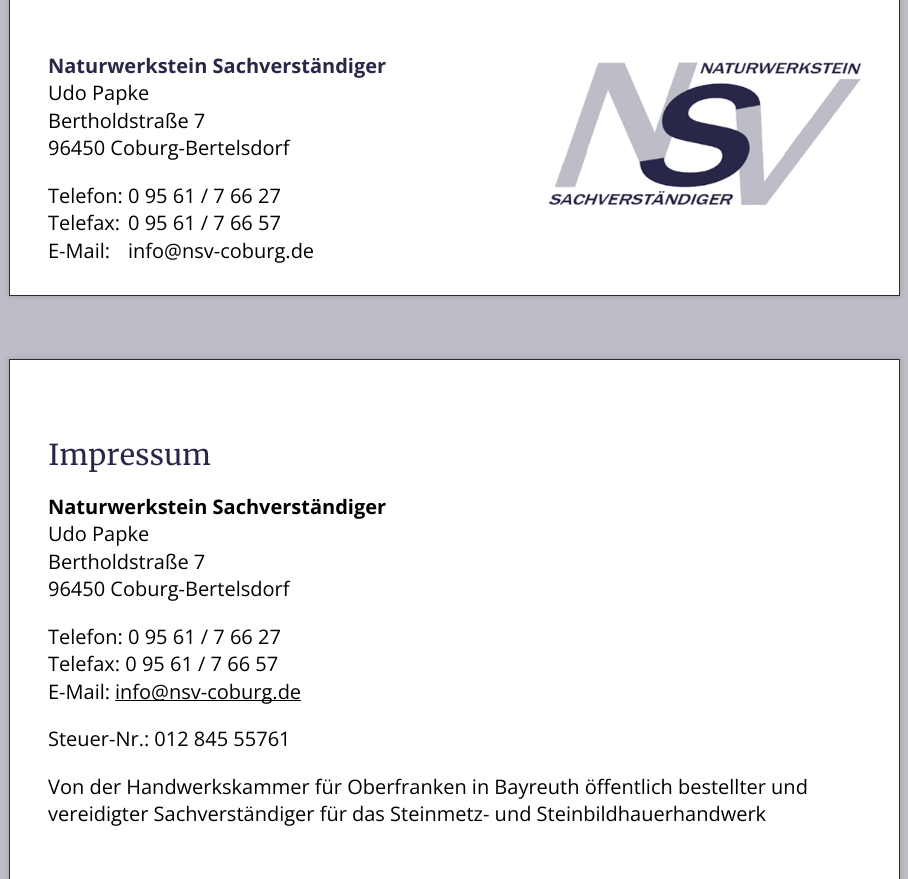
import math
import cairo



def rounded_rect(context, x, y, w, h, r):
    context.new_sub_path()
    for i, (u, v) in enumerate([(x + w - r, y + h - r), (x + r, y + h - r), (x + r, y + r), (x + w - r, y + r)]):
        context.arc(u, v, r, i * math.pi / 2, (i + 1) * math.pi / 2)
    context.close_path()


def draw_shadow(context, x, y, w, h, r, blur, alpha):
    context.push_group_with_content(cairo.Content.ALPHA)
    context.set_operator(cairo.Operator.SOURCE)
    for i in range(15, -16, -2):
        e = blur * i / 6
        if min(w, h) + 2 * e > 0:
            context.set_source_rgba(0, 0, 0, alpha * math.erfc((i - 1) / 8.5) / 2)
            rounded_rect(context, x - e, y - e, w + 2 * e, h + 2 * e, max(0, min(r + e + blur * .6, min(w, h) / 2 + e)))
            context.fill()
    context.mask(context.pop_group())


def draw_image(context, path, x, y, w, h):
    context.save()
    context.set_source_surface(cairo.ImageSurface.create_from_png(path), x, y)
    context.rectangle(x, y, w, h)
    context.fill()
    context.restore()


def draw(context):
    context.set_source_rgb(189 / 255, 189 / 255, 199 / 255)
    context.paint()
    context.set_source_rgb(160 / 255, 160 / 255, 160 / 255)
    draw_shadow(context, 9, 0, 891, 296, 0, 3, 1)
    context.set_source_rgb(1, 1, 1)
    context.rectangle(10, 0, 889, 295)
    context.fill()
    context.set_source_rgb(40 / 255, 39 / 255, 72 / 255)
    context.rectangle(899, 0, 1, 296)
    context.fill()
    context.rectangle(9, 295, 891, 1)
    context.fill()
    context.rectangle(9, 0, 1, 296)
    context.fill()
    draw_image(context, "images/1.png", 548, 62, 314, 143)
    context.set_source_rgb(160 / 255, 160 / 255, 160 / 255)
    draw_shadow(context, 9, 359, 891, 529, 0, 3, 1)
    context.set_source_rgb(1, 1, 1)
    context.rectangle(9.5, 359.5, 890, 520)
    context.fill_preserve()
    context.set_source_rgb(40 / 255, 39 / 255, 72 / 255)
    context.set_line_width(1)
    context.stroke()
    context.set_source_rgb(0, 0, 0)
    context.rectangle(115, 700, 186, 1)
    context.fill()
    context.select_font_face("Open Sans", cairo.FontSlant.NORMAL, cairo.FontWeight.BOLD)
    context.set_font_size(20)
    context.set_source_rgb(40 / 255, 39 / 255, 72 / 255)
    context.move_to(48, 73)
    context.show_text("Naturwerkstein Sachverständiger")
    context.select_font_face("Open Sans")
    context.set_source_rgb(0, 0, 0)
    context.move_to(48, 100)
    context.show_text("Udo Papke")
    context.move_to(48, 128)
    context.show_text("Bertholdstraße 7")
    context.move_to(48, 155)
    context.show_text("96450 Coburg-Bertelsdorf")
    context.move_to(48, 203)
    context.show_text("Telefon: 0 95 61 / 7 66 27")
    context.move_to(48, 230)
    context.show_text("Telefax:")
    context.move_to(128, 230)
    context.show_text("0 95 61 / 7 66 57")
    context.move_to(48, 258)
    context.show_text("E-Mail:")
    context.move_to(128, 258)
    context.show_text("info@nsv-coburg.de")
    context.select_font_face("Merriweather")
    context.set_font_size(28.75)
    context.set_source_rgb(40 / 255, 39 / 255, 72 / 255)
    context.move_to(48, 465)
    context.show_text("Impressum")
    context.select_font_face("Open Sans", cairo.FontSlant.NORMAL, cairo.FontWeight.BOLD)
    context.set_font_size(20)
    context.set_source_rgb(0, 0, 0)
    context.move_to(48, 514)
    context.show_text("Naturwerkstein Sachverständiger")
    context.select_font_face("Open Sans")
    context.move_to(48, 541)
    context.show_text("Udo Papke")
    context.move_to(48, 569)
    context.show_text("Bertholdstraße 7")
    context.move_to(48, 596)
    context.show_text("96450 Coburg-Bertelsdorf")
    context.move_to(48, 644)
    context.show_text("Telefon: 0 95 61 / 7 66 27")
    context.move_to(48, 671)
    context.show_text("Telefax: 0 95 61 / 7 66 57")
    context.move_to(48, 699)
    context.show_text("E-Mail:")
    context.move_to(115, 699)
    context.show_text("info@nsv-coburg.de")
    context.move_to(48, 746)
    context.show_text("Steuer-Nr.: 012 845 55761")
    context.move_to(48, 794)
    context.show_text("Von der Handwerkskammer für Oberfranken in Bayreuth öffentlich bestellter und")
    context.move_to(48, 821)
    context.show_text("vereidigter Sachverständiger für das Steinmetz- und Steinbildhauerhandwerk")


surface = cairo.ImageSurface(cairo.Format.RGB24, 908, 879)
context = cairo.Context(surface)
options = cairo.FontOptions()
options.set_hint_metrics(cairo.HintMetrics.OFF)
options.set_hint_style(cairo.HintStyle.NONE)
context.set_font_options(options)
context.set_miter_limit(4)
draw(context)
surface.write_to_png("out.png")
